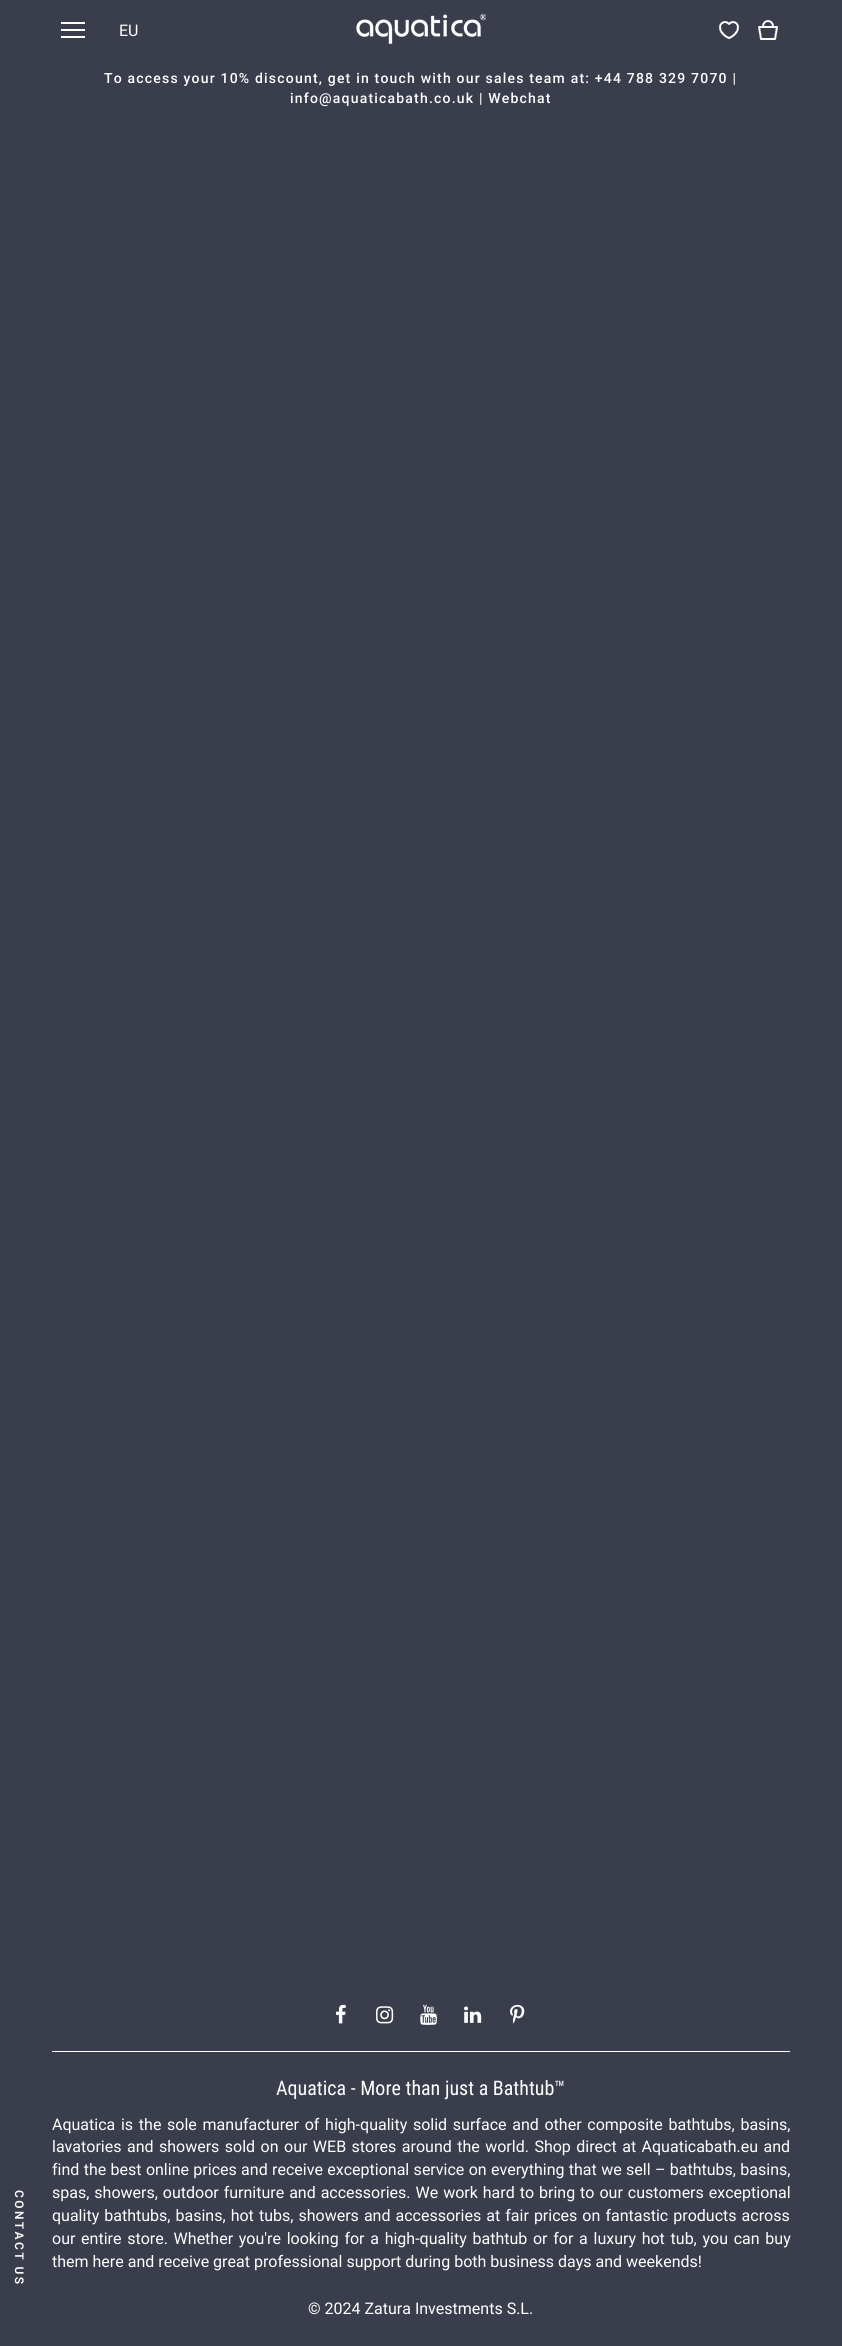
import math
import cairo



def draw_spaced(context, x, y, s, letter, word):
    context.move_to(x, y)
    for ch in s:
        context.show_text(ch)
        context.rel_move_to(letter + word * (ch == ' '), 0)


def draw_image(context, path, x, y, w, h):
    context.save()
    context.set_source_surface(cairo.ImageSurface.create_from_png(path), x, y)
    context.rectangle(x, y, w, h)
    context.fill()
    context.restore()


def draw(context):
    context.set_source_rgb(58 / 255, 61 / 255, 76 / 255)
    context.paint()
    draw_image(context, "images/1.png", 61, 22, 24, 16)
    draw_image(context, "images/2.png", 356, 14, 130, 30)
    draw_image(context, "images/3.png", 719, 21, 20, 18)
    draw_image(context, "images/4.png", 758, 20, 20, 20)
    draw_image(context, "images/5.png", 336, 2004, 10, 20)
    draw_image(context, "images/6.png", 376, 2006, 18, 18)
    draw_image(context, "images/7.png", 420, 2004, 17, 21)
    draw_image(context, "images/8.png", 464, 2006, 18, 17)
    draw_image(context, "images/9.png", 510, 2004, 15, 20)
    context.set_source_rgb(1, 1, 1)
    context.rectangle(52, 2051, 738, 1)
    context.fill()
    context.select_font_face("Roboto")
    context.set_font_size(16)
    context.move_to(119, 36)
    context.show_text("EU")
    context.select_font_face("Roboto Medium")
    context.set_font_size(14)
    draw_spaced(context, 104, 83, "To access your 10% discount, get in touch with our sales team at: +44 788 329 7070 |", 1.2, 0)
    draw_spaced(context, 290, 103, "info@aquaticabath.co.uk | Webchat", 1.2, 0)
    context.select_font_face("Roboto SemiBold")
    context.set_font_size(12)
    context.save()
    context.translate(15, 2190)
    context.rotate(90 * math.pi / 180)
    draw_spaced(context, 0, 0, "CONTACT US", 2.4, -1)
    context.restore()
    context.select_font_face("Roboto Condensed")
    context.set_font_size(20)
    context.move_to(276, 2095)
    context.show_text("Aquatica - More than just a Bathtub™")
    context.select_font_face("Roboto")
    context.set_font_size(16)
    draw_spaced(context, 52, 2130, "Aquatica is the sole manufacturer of high-quality solid surface and other composite bathtubs, basins,", 0, 1.75)
    draw_spaced(context, 52, 2152, "lavatories and showers sold on our WEB stores around the world. Shop direct at Aquaticabath.eu and", 0, 1.5)
    draw_spaced(context, 52, 2175, "find the best online prices and receive exceptional service on everything that we sell – bathtubs, basins,", 0, 0.4)
    draw_spaced(context, 52, 2198, "spas, showers, outdoor furniture and accessories. We work hard to bring to our customers exceptional", 0, 1)
    draw_spaced(context, 52, 2221, "quality bathtubs, basins, hot tubs, showers and accessories at fair prices on fantastic products across", 0, 1.1)
    draw_spaced(context, 52, 2244, "our entire store. Whether you're looking for a high-quality bathtub or for a luxury hot tub, you can buy", 0, 1.75)
    context.move_to(52, 2267)
    context.show_text("them here and receive great professional support during both business days and weekends!")
    context.move_to(308, 2314)
    context.show_text("© 2024 Zatura Investments S.L.")


surface = cairo.ImageSurface(cairo.Format.RGB24, 842, 2346)
context = cairo.Context(surface)
options = cairo.FontOptions()
options.set_hint_metrics(cairo.HintMetrics.OFF)
options.set_hint_style(cairo.HintStyle.NONE)
context.set_font_options(options)
context.set_miter_limit(4)
draw(context)
surface.write_to_png("out.png")
